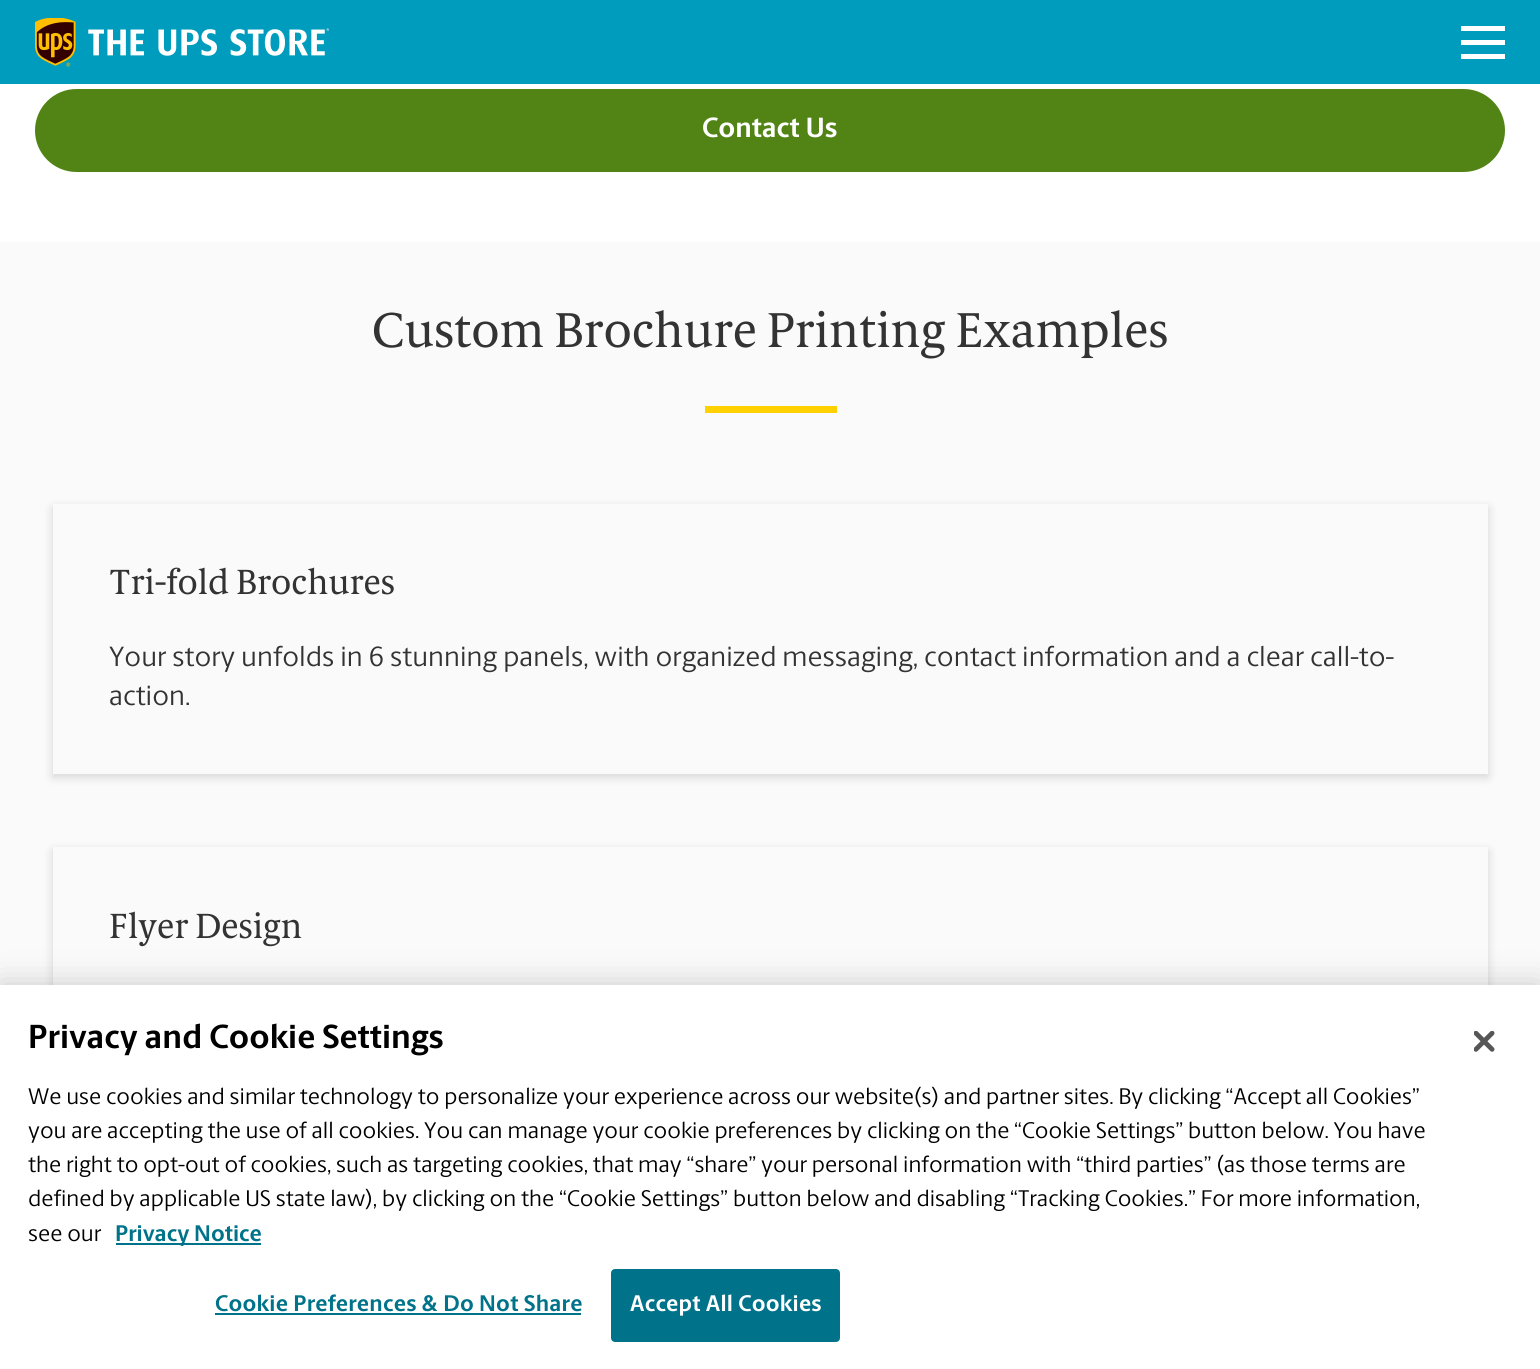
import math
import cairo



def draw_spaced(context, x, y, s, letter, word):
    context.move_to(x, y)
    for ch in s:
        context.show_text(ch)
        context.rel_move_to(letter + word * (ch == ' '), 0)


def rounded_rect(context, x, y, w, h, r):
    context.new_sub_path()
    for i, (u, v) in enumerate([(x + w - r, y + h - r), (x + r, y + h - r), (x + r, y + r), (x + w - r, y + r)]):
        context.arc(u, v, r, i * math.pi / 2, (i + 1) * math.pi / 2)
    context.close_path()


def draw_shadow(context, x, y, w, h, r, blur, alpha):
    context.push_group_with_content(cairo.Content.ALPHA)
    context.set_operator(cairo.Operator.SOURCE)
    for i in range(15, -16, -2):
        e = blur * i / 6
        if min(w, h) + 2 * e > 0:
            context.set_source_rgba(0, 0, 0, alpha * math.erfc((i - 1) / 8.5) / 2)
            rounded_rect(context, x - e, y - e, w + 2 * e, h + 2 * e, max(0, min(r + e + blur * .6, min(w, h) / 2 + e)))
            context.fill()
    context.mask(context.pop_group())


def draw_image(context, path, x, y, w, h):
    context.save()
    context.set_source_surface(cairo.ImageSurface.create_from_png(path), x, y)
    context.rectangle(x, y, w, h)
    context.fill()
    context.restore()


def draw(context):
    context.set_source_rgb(1, 1, 1)
    context.paint()
    context.set_source_rgb(0, 156 / 255, 189 / 255)
    context.rectangle(0, 0, 1540, 84)
    context.fill()
    draw_image(context, "images/1.png", 35, 18, 294, 49)
    context.set_source_rgb(1, 1, 1)
    context.rectangle(1461, 26, 44, 5)
    context.fill()
    context.rectangle(1461, 40, 44, 5)
    context.fill()
    context.rectangle(1461, 54, 44, 5)
    context.fill()
    context.set_source_rgb(81 / 255, 132 / 255, 21 / 255)
    rounded_rect(context, 35, 89, 1470, 83, 41.5)
    context.fill()
    context.set_source_rgb(250 / 255, 250 / 255, 250 / 255)
    context.rectangle(0, 242, 1540, 743)
    context.fill()
    context.set_source_rgb(1, 209 / 255, 0)
    context.rectangle(705, 406, 132, 7)
    context.fill()
    context.save()
    context.set_fill_rule(cairo.FillRule.EVEN_ODD)
    context.new_path()
    context.move_to(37, 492)
    context.line_to(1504, 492)
    context.line_to(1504, 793)
    context.line_to(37, 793)
    context.close_path()
    context.move_to(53, 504)
    context.line_to(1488, 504)
    context.line_to(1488, 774)
    context.line_to(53, 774)
    context.close_path()
    context.clip()
    context.set_source_rgb(0, 0, 0)
    draw_shadow(context, 53, 508, 1435, 269, 0, 5, 0.15)
    context.restore()
    context.save()
    context.set_fill_rule(cairo.FillRule.EVEN_ODD)
    context.new_path()
    context.move_to(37, 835)
    context.line_to(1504, 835)
    context.line_to(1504, 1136)
    context.line_to(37, 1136)
    context.close_path()
    context.move_to(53, 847)
    context.line_to(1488, 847)
    context.line_to(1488, 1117)
    context.line_to(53, 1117)
    context.close_path()
    context.clip()
    context.set_source_rgb(0, 0, 0)
    draw_shadow(context, 53, 851, 1435, 269, 0, 5, 0.15)
    context.restore()
    context.set_source_rgb(0, 0, 0)
    draw_shadow(context, 0, 985, 1540, 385, 0, 16, 0.2)
    context.set_source_rgb(1, 1, 1)
    context.rectangle(0, 985, 1540, 384)
    context.fill()
    context.set_source_rgb(0, 115 / 255, 138 / 255)
    context.rectangle(116, 1243, 145, 2)
    context.fill()
    context.rectangle(215, 1313, 366, 2)
    context.fill()
    rounded_rect(context, 612, 1270, 227, 71, 3)
    context.fill_preserve()
    context.stroke()
    draw_image(context, "images/2.png", 1474, 1031, 21, 21)
    context.select_font_face("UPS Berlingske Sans", cairo.FontSlant.NORMAL, cairo.FontWeight.BOLD)
    context.set_font_size(28)
    context.set_source_rgb(1, 1, 1)
    context.move_to(702, 137)
    context.show_text("Contact Us")
    context.select_font_face("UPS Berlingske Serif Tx")
    context.set_font_size(49)
    context.set_source_rgb(51 / 255, 51 / 255, 51 / 255)
    context.move_to(372, 347)
    context.show_text("Custom Brochure Printing Examples")
    context.set_font_size(35)
    context.move_to(109, 594)
    context.show_text("Tri-fold Brochures")
    context.select_font_face("UPS Berlingske Sans")
    context.set_font_size(28)
    context.move_to(109, 666)
    context.show_text("Your story unfolds in 6 stunning panels, with organized messaging, contact information and a clear call-to-")
    context.move_to(109, 705)
    context.show_text("action.")
    context.select_font_face("UPS Berlingske Serif Tx")
    context.set_font_size(35)
    context.move_to(109, 938)
    context.show_text("Flyer Design")
    context.select_font_face("UPS Berlingske Sans", cairo.FontSlant.NORMAL, cairo.FontWeight.BOLD)
    context.set_font_size(33.6)
    context.set_source_rgb(0, 0, 0)
    context.move_to(28, 1048)
    context.show_text("Privacy and Cookie Settings")
    context.select_font_face("UPS Berlingske Sans")
    context.set_font_size(22.75)
    context.move_to(28, 1104)
    context.show_text("We use cookies and similar technology to personalize your experience across our website(s) and partner sites. By clicking “Accept all Cookies”")
    context.move_to(28, 1138)
    context.show_text("you are accepting the use of all cookies. You can manage your cookie preferences by clicking on the “Cookie Settings” button below. You have")
    context.move_to(28, 1172)
    context.show_text("the right to opt-out of cookies, such as targeting cookies, that may “share” your personal information with “third parties” (as those terms are")
    context.move_to(28, 1206)
    context.show_text("defined by applicable US state law), by clicking on the “Cookie Settings” button below and disabling “Tracking Cookies.” For more information,")
    context.move_to(28, 1241)
    context.show_text("see our")
    context.select_font_face("UPS Berlingske Sans", cairo.FontSlant.NORMAL, cairo.FontWeight.BOLD)
    context.set_source_rgb(0, 115 / 255, 138 / 255)
    context.move_to(115, 1241)
    context.show_text("Privacy Notice")
    draw_spaced(context, 215, 1311, "Cookie Preferences & Do Not Share", 0.25, 0)
    context.set_source_rgb(1, 1, 1)
    draw_spaced(context, 630, 1311, "Accept All Cookies", 0.25, 0)


surface = cairo.ImageSurface(cairo.Format.RGB24, 1540, 1369)
context = cairo.Context(surface)
options = cairo.FontOptions()
options.set_hint_metrics(cairo.HintMetrics.OFF)
options.set_hint_style(cairo.HintStyle.NONE)
context.set_font_options(options)
context.set_miter_limit(4)
draw(context)
surface.write_to_png("out.png")
